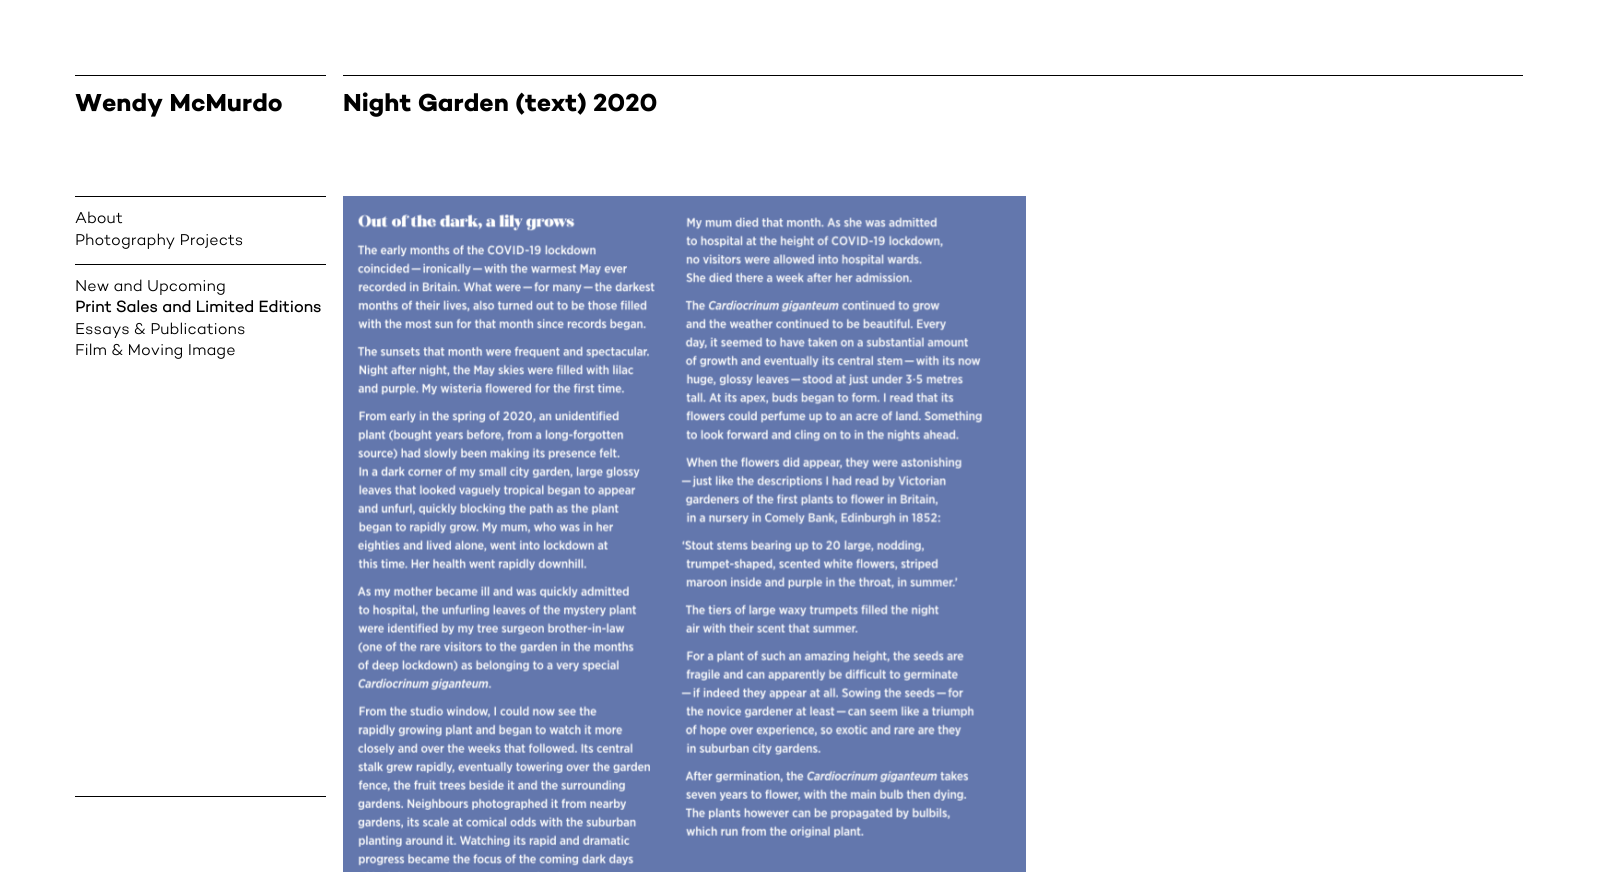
import math
import cairo



def draw_image(context, path, x, y, w, h):
    context.save()
    context.set_source_surface(cairo.ImageSurface.create_from_png(path), x, y)
    context.rectangle(x, y, w, h)
    context.fill()
    context.restore()


def draw(context):
    context.set_source_rgb(1, 1, 1)
    context.paint()
    context.set_source_rgb(0, 0, 0)
    context.rectangle(75, 75, 251, 1)
    context.fill()
    context.rectangle(75, 796, 251, 1)
    context.fill()
    context.rectangle(75, 196, 251, 1)
    context.fill()
    context.rectangle(75, 264, 251, 1)
    context.fill()
    context.rectangle(343, 75, 1180, 1)
    context.fill()
    draw_image(context, "images/1.png", 343, 196, 683, 676)
    context.select_font_face("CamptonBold", cairo.FontSlant.NORMAL, cairo.FontWeight.BOLD)
    context.set_font_size(25)
    context.move_to(75, 111)
    context.show_text("Wendy McMurdo")
    context.select_font_face("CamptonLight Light")
    context.set_font_size(16)
    context.move_to(75, 223)
    context.show_text("About")
    context.move_to(75, 245)
    context.show_text("Photography Projects")
    context.move_to(75, 291)
    context.show_text("New and Upcoming")
    context.select_font_face("CamptonLight", cairo.FontSlant.NORMAL, cairo.FontWeight.BOLD)
    context.move_to(75, 312)
    context.show_text("Print Sales and Limited Editions")
    context.select_font_face("CamptonLight Light")
    context.move_to(75, 334)
    context.show_text("Essays & Publications")
    context.move_to(75, 355)
    context.show_text("Film & Moving Image")
    context.select_font_face("CamptonBold", cairo.FontSlant.NORMAL, cairo.FontWeight.BOLD)
    context.set_font_size(25)
    context.move_to(343, 111)
    context.show_text("Night Garden (text) 2020")


surface = cairo.ImageSurface(cairo.Format.RGB24, 1598, 872)
context = cairo.Context(surface)
options = cairo.FontOptions()
options.set_hint_metrics(cairo.HintMetrics.OFF)
options.set_hint_style(cairo.HintStyle.NONE)
context.set_font_options(options)
context.set_miter_limit(4)
draw(context)
surface.write_to_png("out.png")
